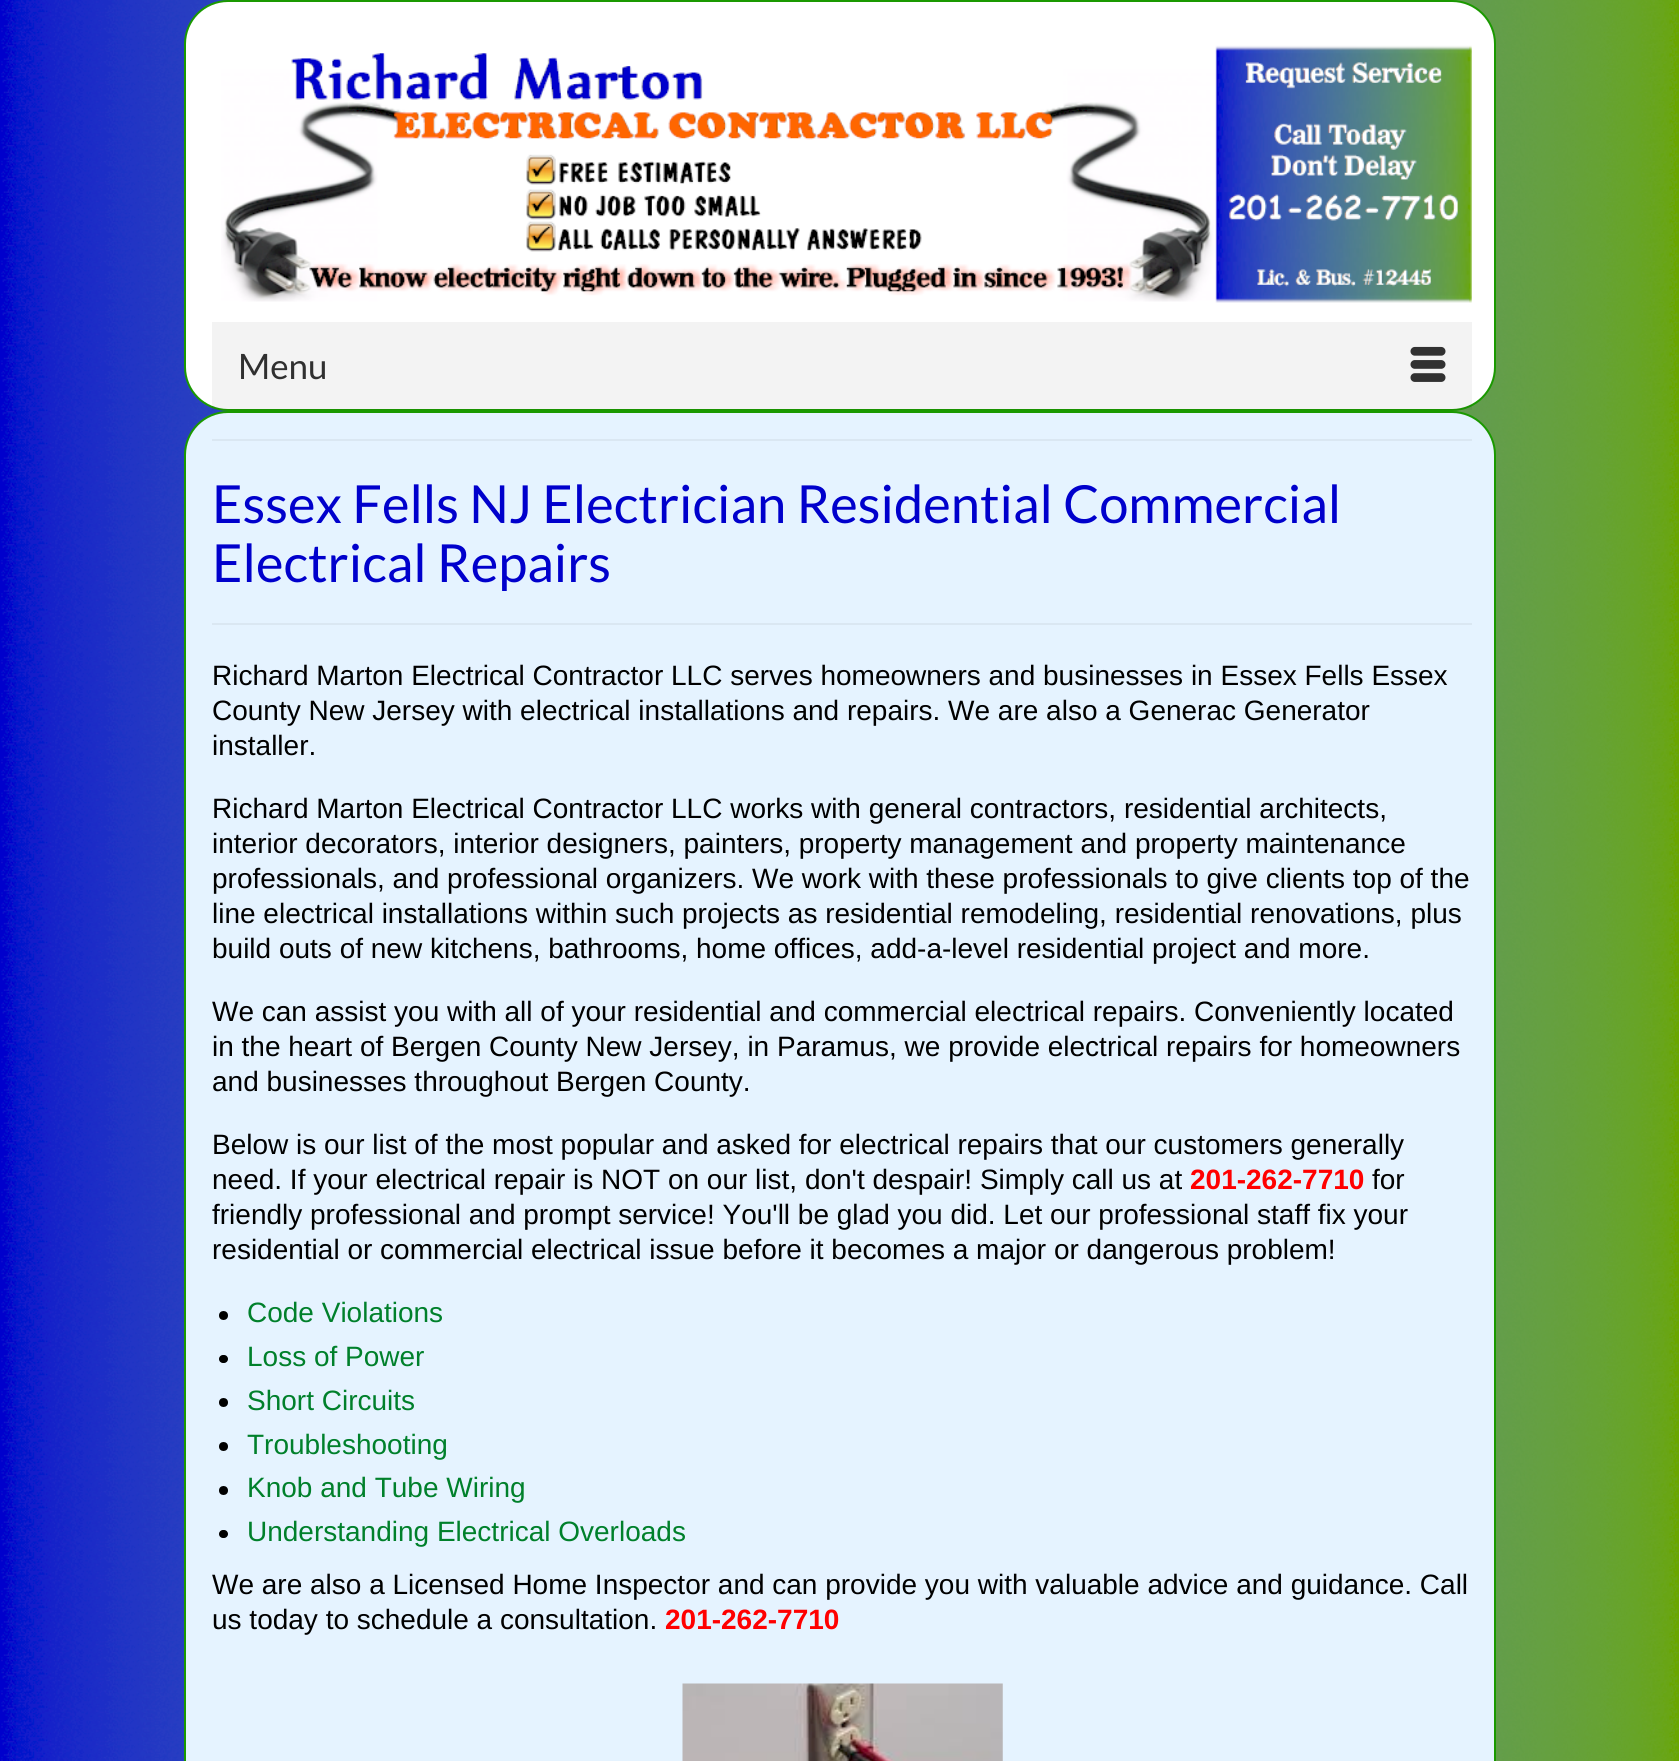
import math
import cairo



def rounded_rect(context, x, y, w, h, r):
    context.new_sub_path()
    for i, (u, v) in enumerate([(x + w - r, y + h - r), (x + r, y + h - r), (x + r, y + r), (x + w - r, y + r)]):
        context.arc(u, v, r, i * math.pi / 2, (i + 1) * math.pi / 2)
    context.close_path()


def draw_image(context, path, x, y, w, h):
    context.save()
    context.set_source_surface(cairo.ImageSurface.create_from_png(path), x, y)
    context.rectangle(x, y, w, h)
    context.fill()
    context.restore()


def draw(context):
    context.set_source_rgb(1, 1, 1)
    context.paint()
    draw_image(context, "images/1.png", 0, 0, 1679, 1761)
    context.set_source_rgb(1, 1, 1)
    rounded_rect(context, 185, 1, 1310, 409, 43)
    context.fill_preserve()
    context.set_source_rgb(26 / 255, 153 / 255, 0)
    context.stroke()
    draw_image(context, "images/2.png", 221, 45, 1251, 258)
    context.set_source_rgba(0, 0, 0, 0.05)
    context.rectangle(212, 322, 1260, 88)
    context.fill()
    draw_image(context, "images/3.png", 1410, 346, 36, 36)
    context.set_source_rgb(229 / 255, 243 / 255, 1)
    rounded_rect(context, 185, 412, 1310, 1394, 43)
    context.fill_preserve()
    context.set_source_rgb(26 / 255, 153 / 255, 0)
    context.stroke()
    context.set_source_rgb(218 / 255, 231 / 255, 242 / 255)
    context.rectangle(212, 439, 1260, 2)
    context.fill()
    context.rectangle(212, 623, 1260, 2)
    context.fill()
    context.set_source_rgb(0, 0, 0)
    context.arc(223.5, 1315.5, 4.5, 0, 2 * math.pi)
    context.fill()
    rounded_rect(context, 219, 1355, 9, 8, 4)
    context.fill()
    context.arc(223.5, 1402.5, 4.5, 0, 2 * math.pi)
    context.fill()
    context.arc(223.5, 1446.5, 4.5, 0, 2 * math.pi)
    context.fill()
    context.arc(223.5, 1490.5, 4.5, 0, 2 * math.pi)
    context.fill()
    rounded_rect(context, 219, 1530, 9, 8, 4)
    context.fill()
    draw_image(context, "images/4.png", 682, 1683, 321, 78)
    context.select_font_face("Lato")
    context.set_font_size(35)
    context.set_source_rgb(48 / 255, 48 / 255, 48 / 255)
    context.move_to(238, 379)
    context.show_text("Menu")
    context.set_font_size(52.5)
    context.set_source_rgb(0, 0, 204 / 255)
    context.move_to(212, 523)
    context.show_text("Essex Fells NJ Electrician Residential Commercial")
    context.move_to(212, 582)
    context.show_text("Electrical Repairs")
    context.select_font_face("Liberation Sans")
    context.set_font_size(28)
    context.set_source_rgb(0, 0, 0)
    context.move_to(212, 685)
    context.show_text("Richard Marton Electrical Contractor LLC serves homeowners and businesses in Essex Fells Essex")
    context.move_to(212, 720)
    context.show_text("County New Jersey with electrical installations and repairs. We are also a Generac Generator")
    context.move_to(212, 755)
    context.show_text("installer.")
    context.move_to(212, 818)
    context.show_text("Richard Marton Electrical Contractor LLC works with general contractors, residential architects,")
    context.move_to(212, 853)
    context.show_text("interior decorators, interior designers, painters, property management and property maintenance")
    context.move_to(212, 888)
    context.show_text("professionals, and professional organizers. We work with these professionals to give clients top of the")
    context.move_to(212, 923)
    context.show_text("line electrical installations within such projects as residential remodeling, residential renovations, plus")
    context.move_to(212, 958)
    context.show_text("build outs of new kitchens, bathrooms, home offices, add-a-level residential project and more.")
    context.move_to(212, 1021)
    context.show_text("We can assist you with all of your residential and commercial electrical repairs. Conveniently located")
    context.move_to(212, 1056)
    context.show_text("in the heart of Bergen County New Jersey, in Paramus, we provide electrical repairs for homeowners")
    context.move_to(212, 1091)
    context.show_text("and businesses throughout Bergen County.")
    context.move_to(212, 1154)
    context.show_text("Below is our list of the most popular and asked for electrical repairs that our customers generally")
    context.move_to(212, 1189)
    context.show_text("need. If your electrical repair is NOT on our list, don't despair! Simply call us at")
    context.select_font_face("Liberation Sans", cairo.FontSlant.NORMAL, cairo.FontWeight.BOLD)
    context.set_source_rgb(1, 0, 0)
    context.move_to(1190, 1189)
    context.show_text("201-262-7710")
    context.select_font_face("Liberation Sans")
    context.set_source_rgb(0, 0, 0)
    context.move_to(1372, 1189)
    context.show_text("for")
    context.move_to(212, 1224)
    context.show_text("friendly professional and prompt service! You'll be glad you did. Let our professional staff fix your")
    context.move_to(212, 1259)
    context.show_text("residential or commercial electrical issue before it becomes a major or dangerous problem!")
    context.set_source_rgb(0, 128 / 255, 43 / 255)
    context.move_to(247, 1322)
    context.show_text("Code Violations")
    context.move_to(247, 1366)
    context.show_text("Loss of Power")
    context.move_to(247, 1410)
    context.show_text("Short Circuits")
    context.move_to(247, 1454)
    context.show_text("Troubleshooting")
    context.move_to(247, 1497)
    context.show_text("Knob and Tube Wiring")
    context.move_to(247, 1541)
    context.show_text("Understanding Electrical Overloads")
    context.set_source_rgb(0, 0, 0)
    context.move_to(212, 1594)
    context.show_text("We are also a Licensed Home Inspector and can provide you with valuable advice and guidance. Call")
    context.move_to(212, 1629)
    context.show_text("us today to schedule a consultation.")
    context.select_font_face("Liberation Sans", cairo.FontSlant.NORMAL, cairo.FontWeight.BOLD)
    context.set_source_rgb(1, 0, 0)
    context.move_to(665, 1629)
    context.show_text("201-262-7710")


surface = cairo.ImageSurface(cairo.Format.RGB24, 1679, 1761)
context = cairo.Context(surface)
options = cairo.FontOptions()
options.set_hint_metrics(cairo.HintMetrics.OFF)
options.set_hint_style(cairo.HintStyle.NONE)
context.set_font_options(options)
context.set_miter_limit(4)
draw(context)
surface.write_to_png("out.png")
